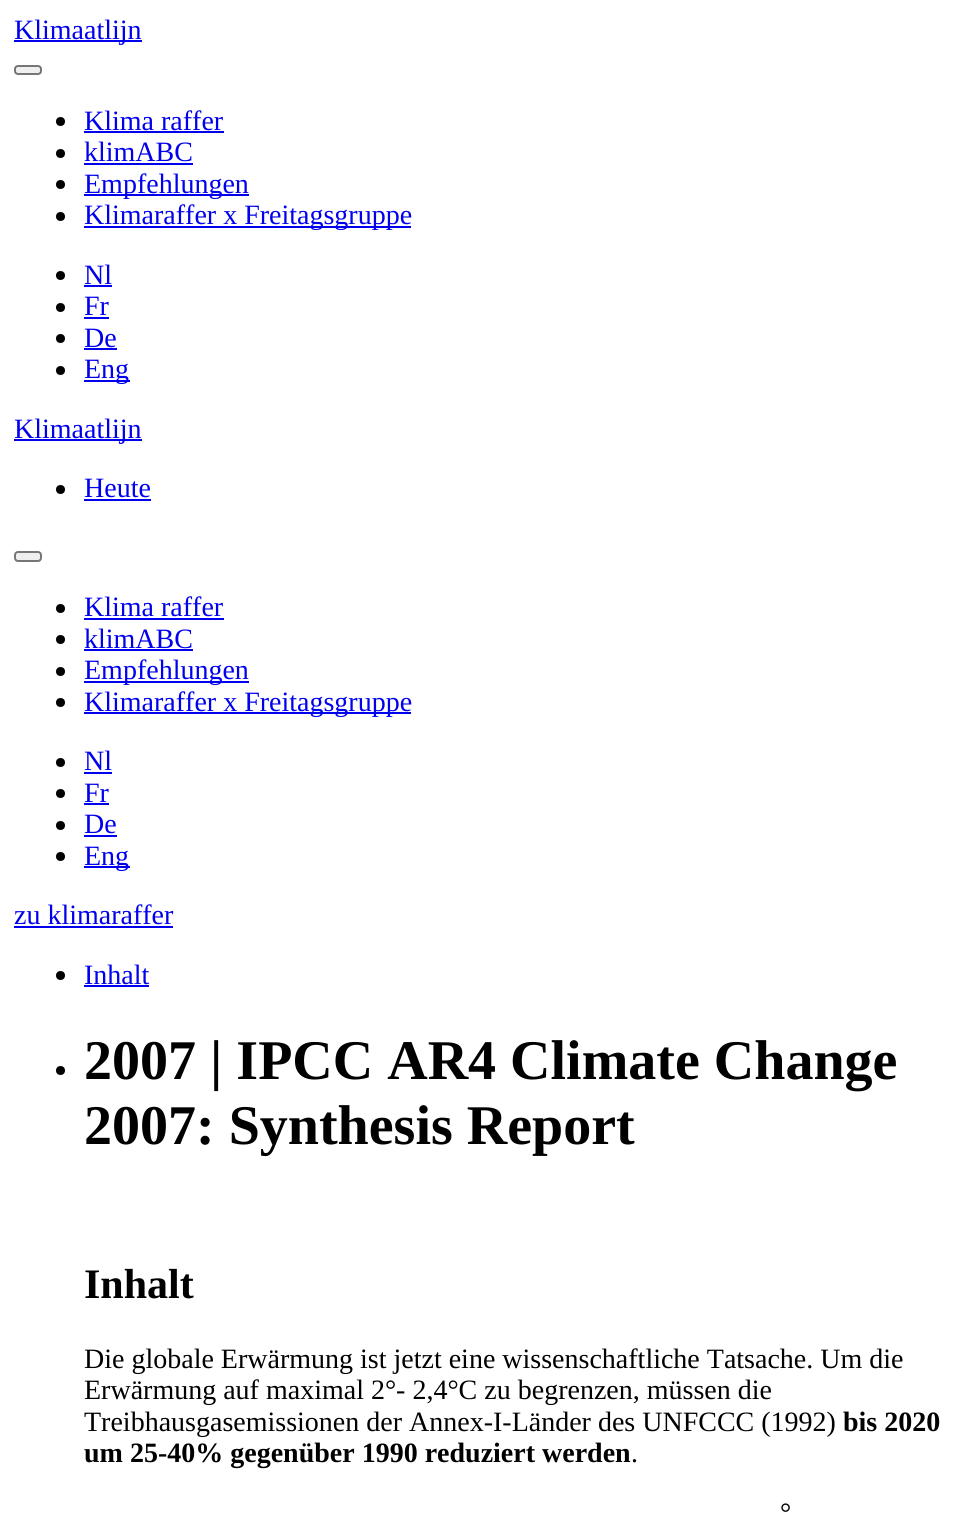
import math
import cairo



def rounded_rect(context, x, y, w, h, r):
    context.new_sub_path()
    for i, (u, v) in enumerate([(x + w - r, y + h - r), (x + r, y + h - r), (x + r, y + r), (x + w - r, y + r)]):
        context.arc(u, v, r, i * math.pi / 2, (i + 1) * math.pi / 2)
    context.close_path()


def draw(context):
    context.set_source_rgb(1, 1, 1)
    context.paint()
    context.set_source_rgb(0, 0, 238 / 255)
    context.rectangle(14, 40, 128, 2)
    context.fill()
    context.set_source_rgb(239 / 255, 239 / 255, 239 / 255)
    rounded_rect(context, 15, 66, 26, 8, 3)
    context.fill_preserve()
    context.set_source_rgb(118 / 255, 118 / 255, 118 / 255)
    context.stroke()
    context.set_source_rgb(0, 0, 0)
    context.arc(60.5, 121.5, 4.5, 0, 2 * math.pi)
    context.fill()
    context.set_source_rgb(0, 0, 238 / 255)
    context.rectangle(84, 131, 140, 2)
    context.fill()
    context.set_source_rgb(0, 0, 0)
    context.arc(60.5, 153.5, 4.5, 0, 2 * math.pi)
    context.fill()
    context.set_source_rgb(0, 0, 238 / 255)
    context.rectangle(84, 163, 109, 2)
    context.fill()
    context.set_source_rgb(0, 0, 0)
    context.arc(60.5, 184.5, 4.5, 0, 2 * math.pi)
    context.fill()
    context.set_source_rgb(0, 0, 238 / 255)
    context.rectangle(84, 194, 165, 2)
    context.fill()
    context.set_source_rgb(0, 0, 0)
    context.arc(60.5, 216.5, 4.5, 0, 2 * math.pi)
    context.fill()
    context.set_source_rgb(0, 0, 238 / 255)
    context.rectangle(84, 226, 327, 2)
    context.fill()
    context.set_source_rgb(0, 0, 0)
    context.arc(60.5, 275.5, 4.5, 0, 2 * math.pi)
    context.fill()
    context.set_source_rgb(0, 0, 238 / 255)
    context.rectangle(84, 285, 28, 2)
    context.fill()
    context.set_source_rgb(0, 0, 0)
    context.arc(60.5, 307.5, 4.5, 0, 2 * math.pi)
    context.fill()
    context.set_source_rgb(0, 0, 238 / 255)
    context.rectangle(84, 317, 25, 2)
    context.fill()
    context.set_source_rgb(0, 0, 0)
    context.arc(60.5, 338.5, 4.5, 0, 2 * math.pi)
    context.fill()
    context.set_source_rgb(0, 0, 238 / 255)
    context.rectangle(84, 348, 33, 2)
    context.fill()
    context.set_source_rgb(0, 0, 0)
    context.arc(60.5, 370.5, 4.5, 0, 2 * math.pi)
    context.fill()
    context.set_source_rgb(0, 0, 238 / 255)
    context.rectangle(84, 380, 46, 2)
    context.fill()
    context.rectangle(14, 439, 128, 2)
    context.fill()
    context.set_source_rgb(0, 0, 0)
    context.arc(60.5, 489.5, 4.5, 0, 2 * math.pi)
    context.fill()
    context.set_source_rgb(0, 0, 238 / 255)
    context.rectangle(84, 499, 67, 2)
    context.fill()
    context.set_source_rgb(239 / 255, 239 / 255, 239 / 255)
    rounded_rect(context, 15, 552, 26, 9, 3)
    context.fill_preserve()
    context.set_source_rgb(118 / 255, 118 / 255, 118 / 255)
    context.stroke()
    context.set_source_rgb(0, 0, 0)
    context.arc(60.5, 608.5, 4.5, 0, 2 * math.pi)
    context.fill()
    context.set_source_rgb(0, 0, 238 / 255)
    context.rectangle(84, 618, 140, 2)
    context.fill()
    context.set_source_rgb(0, 0, 0)
    context.arc(60.5, 639.5, 4.5, 0, 2 * math.pi)
    context.fill()
    context.set_source_rgb(0, 0, 238 / 255)
    context.rectangle(84, 649, 109, 2)
    context.fill()
    context.set_source_rgb(0, 0, 0)
    context.arc(60.5, 671.5, 4.5, 0, 2 * math.pi)
    context.fill()
    context.set_source_rgb(0, 0, 238 / 255)
    context.rectangle(84, 681, 165, 2)
    context.fill()
    context.set_source_rgb(0, 0, 0)
    context.arc(60.5, 702.5, 4.5, 0, 2 * math.pi)
    context.fill()
    context.set_source_rgb(0, 0, 238 / 255)
    context.rectangle(84, 712, 327, 2)
    context.fill()
    context.set_source_rgb(0, 0, 0)
    context.arc(60.5, 762.5, 4.5, 0, 2 * math.pi)
    context.fill()
    context.set_source_rgb(0, 0, 238 / 255)
    context.rectangle(84, 772, 28, 2)
    context.fill()
    context.set_source_rgb(0, 0, 0)
    context.arc(60.5, 793.5, 4.5, 0, 2 * math.pi)
    context.fill()
    context.set_source_rgb(0, 0, 238 / 255)
    context.rectangle(84, 803, 25, 2)
    context.fill()
    context.set_source_rgb(0, 0, 0)
    context.arc(60.5, 825.5, 4.5, 0, 2 * math.pi)
    context.fill()
    context.set_source_rgb(0, 0, 238 / 255)
    context.rectangle(84, 835, 33, 2)
    context.fill()
    context.set_source_rgb(0, 0, 0)
    context.arc(60.5, 856.5, 4.5, 0, 2 * math.pi)
    context.fill()
    context.set_source_rgb(0, 0, 238 / 255)
    context.rectangle(84, 866, 46, 2)
    context.fill()
    context.rectangle(14, 926, 159, 2)
    context.fill()
    context.set_source_rgb(0, 0, 0)
    context.arc(60.5, 975.5, 4.5, 0, 2 * math.pi)
    context.fill()
    context.set_source_rgb(0, 0, 238 / 255)
    context.rectangle(84, 985, 65, 2)
    context.fill()
    context.set_source_rgb(0, 0, 0)
    context.arc(60.5, 1070.5, 4.5, 0, 2 * math.pi)
    context.fill()
    context.select_font_face("Liberation Serif")
    context.set_font_size(28)
    context.set_source_rgb(0, 0, 238 / 255)
    context.move_to(14, 39)
    context.show_text("Klimaatlijn")
    context.move_to(84, 130)
    context.show_text("Klima raffer")
    context.move_to(84, 161)
    context.show_text("klimABC")
    context.move_to(84, 193)
    context.show_text("Empfehlungen")
    context.move_to(84, 224)
    context.show_text("Klimaraffer x Freitagsgruppe")
    context.move_to(84, 284)
    context.show_text("Nl")
    context.move_to(84, 315)
    context.show_text("Fr")
    context.move_to(84, 347)
    context.show_text("De")
    context.move_to(84, 378)
    context.show_text("Eng")
    context.move_to(14, 438)
    context.show_text("Klimaatlijn")
    context.move_to(84, 497)
    context.show_text("Heute")
    context.move_to(84, 616)
    context.show_text("Klima raffer")
    context.move_to(84, 648)
    context.show_text("klimABC")
    context.move_to(84, 679)
    context.show_text("Empfehlungen")
    context.move_to(84, 711)
    context.show_text("Klimaraffer x Freitagsgruppe")
    context.move_to(84, 770)
    context.show_text("Nl")
    context.move_to(84, 802)
    context.show_text("Fr")
    context.move_to(84, 833)
    context.show_text("De")
    context.move_to(84, 865)
    context.show_text("Eng")
    context.move_to(14, 924)
    context.show_text("zu klimaraffer")
    context.move_to(84, 984)
    context.show_text("Inhalt")
    context.select_font_face("Liberation Serif", cairo.FontSlant.NORMAL, cairo.FontWeight.BOLD)
    context.set_font_size(56)
    context.set_source_rgb(0, 0, 0)
    context.move_to(84, 1079)
    context.show_text("2007 | IPCC AR4 Climate Change")
    context.move_to(84, 1144)
    context.show_text("2007: Synthesis Report")
    context.set_font_size(42)
    context.move_to(84, 1298)
    context.show_text("Inhalt")
    context.select_font_face("Liberation Serif")
    context.set_font_size(28)
    context.move_to(84, 1368)
    context.show_text("Die globale Erwärmung ist jetzt eine wissenschaftliche Tatsache. Um die")
    context.move_to(84, 1399)
    context.show_text("Erwärmung auf maximal 2°- 2,4°C zu begrenzen, müssen die")
    context.move_to(84, 1431)
    context.show_text("Treibhausgasemissionen der Annex-I-Länder des UNFCCC (1992)")
    context.select_font_face("Liberation Serif", cairo.FontSlant.NORMAL, cairo.FontWeight.BOLD)
    context.move_to(843, 1431)
    context.show_text("bis 2020")
    context.move_to(84, 1462)
    context.show_text("um 25-40% gegenüber 1990 reduziert werden")
    context.select_font_face("Liberation Serif")
    context.move_to(631, 1462)
    context.show_text(".")
    context.move_to(780, 1522)
    context.show_text("°")


surface = cairo.ImageSurface(cairo.Format.RGB24, 980, 1515)
context = cairo.Context(surface)
options = cairo.FontOptions()
options.set_hint_metrics(cairo.HintMetrics.OFF)
options.set_hint_style(cairo.HintStyle.NONE)
context.set_font_options(options)
context.set_miter_limit(4)
draw(context)
surface.write_to_png("out.png")
